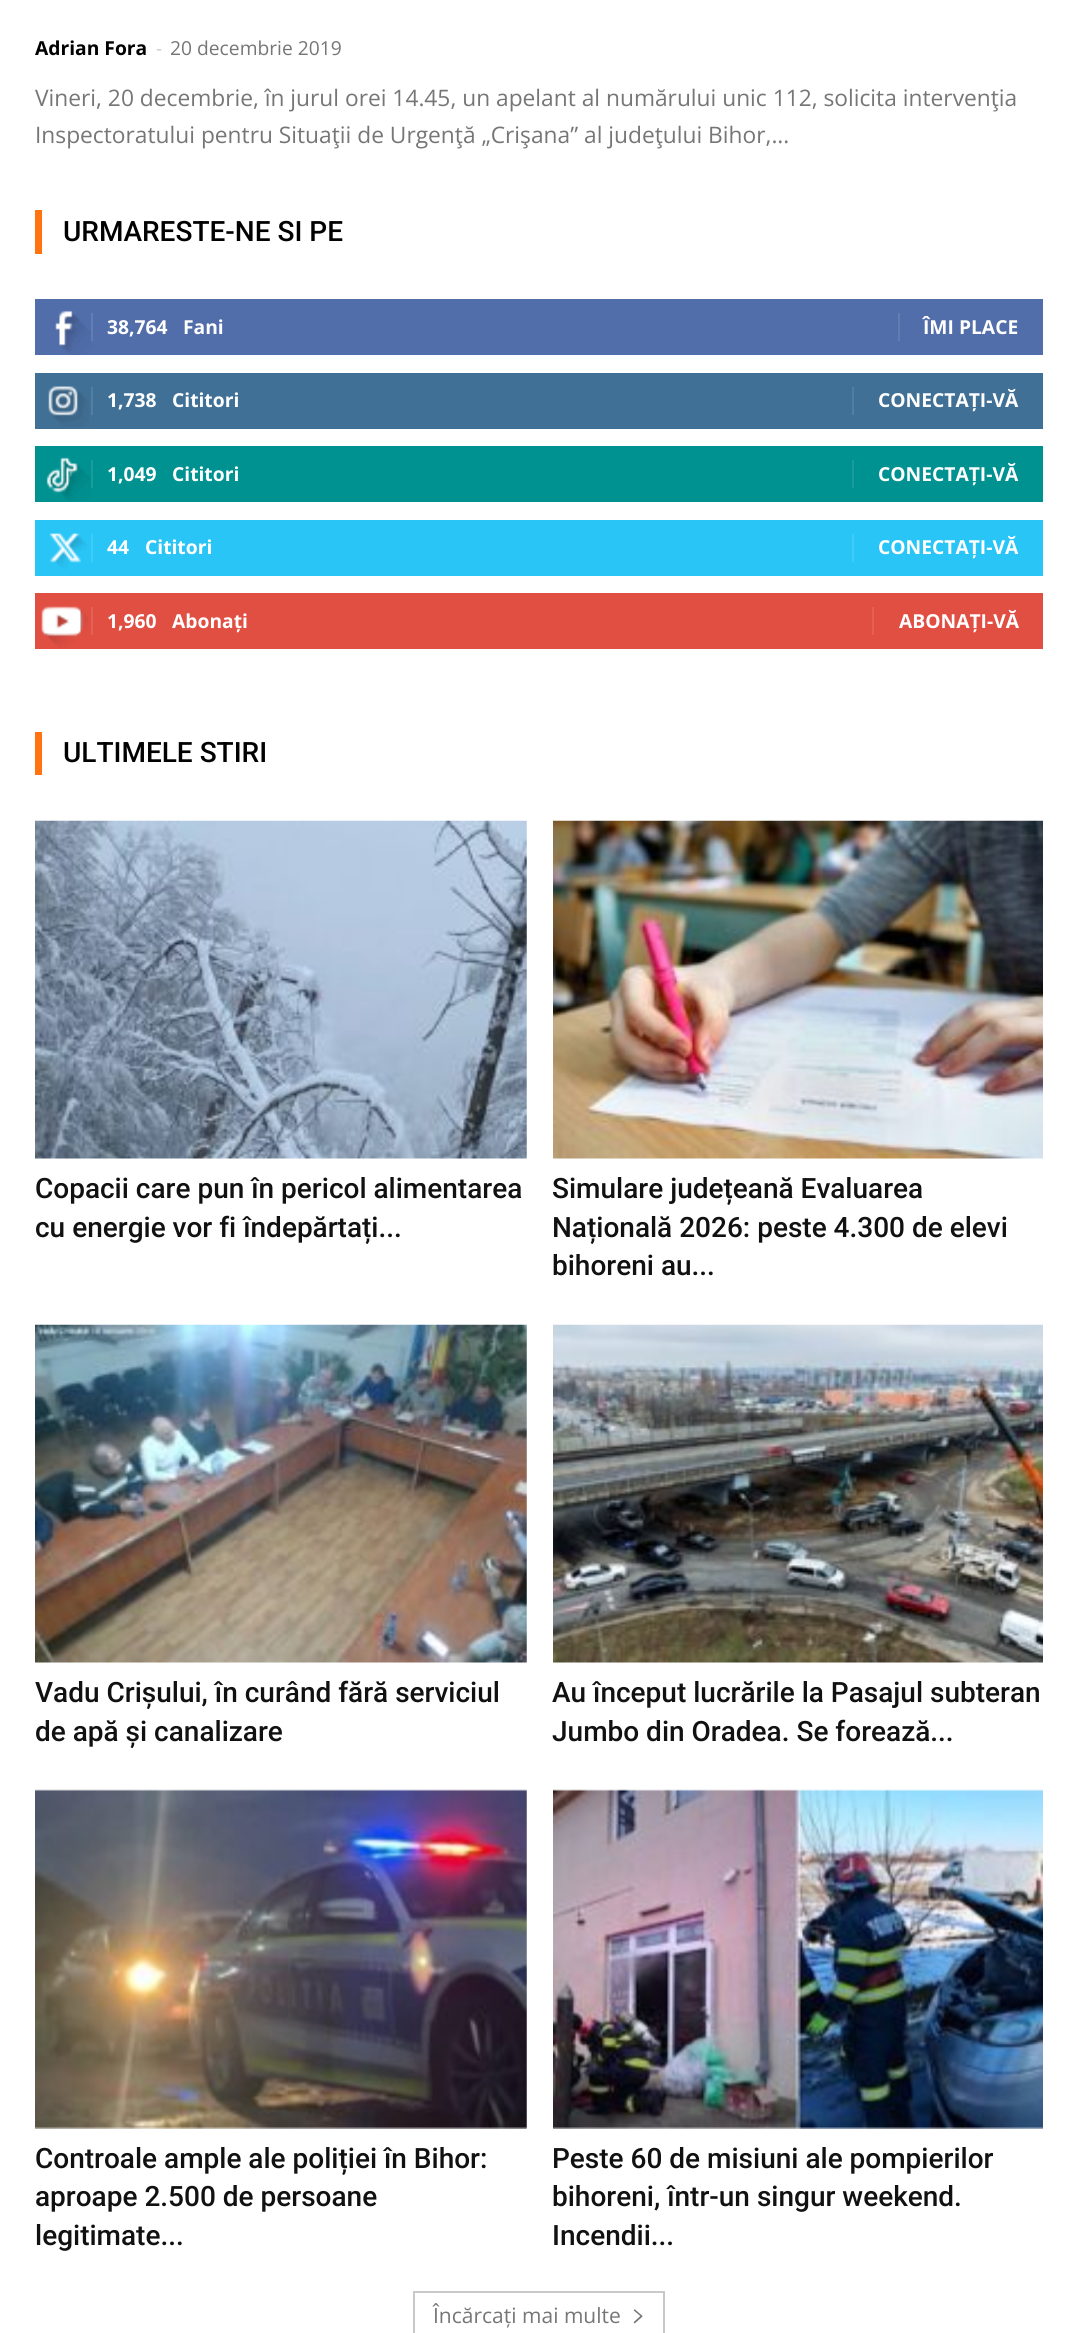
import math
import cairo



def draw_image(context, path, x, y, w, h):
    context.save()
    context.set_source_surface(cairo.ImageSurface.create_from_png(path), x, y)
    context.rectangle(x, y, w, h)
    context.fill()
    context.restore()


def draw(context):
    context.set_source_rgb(1, 1, 1)
    context.paint()
    context.set_source_rgb(1, 116 / 255, 17 / 255)
    context.rectangle(35, 210, 7, 44)
    context.fill()
    context.set_source_rgb(81 / 255, 110 / 255, 171 / 255)
    context.rectangle(35, 299, 1008, 56)
    context.fill()
    draw_image(context, "images/1.png", 55, 310, 36, 45)
    context.set_source_rgb(98 / 255, 125 / 255, 179 / 255)
    context.rectangle(91, 313, 2, 28)
    context.fill()
    context.rectangle(898, 313, 2, 28)
    context.fill()
    context.set_source_rgb(65 / 255, 112 / 255, 150 / 255)
    context.rectangle(35, 373, 1008, 56)
    context.fill()
    draw_image(context, "images/2.png", 48, 386, 41, 41)
    context.set_source_rgb(84 / 255, 126 / 255, 161 / 255)
    context.rectangle(91, 387, 2, 28)
    context.fill()
    context.rectangle(852, 387, 2, 28)
    context.fill()
    context.set_source_rgb(0, 145 / 255, 145 / 255)
    context.rectangle(35, 446, 1008, 56)
    context.fill()
    draw_image(context, "images/3.png", 46, 457, 45, 44)
    context.set_source_rgb(26 / 255, 156 / 255, 156 / 255)
    context.rectangle(91, 460, 2, 28)
    context.fill()
    context.rectangle(852, 460, 2, 28)
    context.fill()
    context.set_source_rgb(41 / 255, 197 / 255, 246 / 255)
    context.rectangle(35, 520, 1008, 56)
    context.fill()
    draw_image(context, "images/4.png", 49, 533, 38, 36)
    context.set_source_rgb(62 / 255, 203 / 255, 247 / 255)
    context.rectangle(91, 534, 2, 28)
    context.fill()
    context.rectangle(852, 534, 2, 28)
    context.fill()
    context.set_source_rgb(225 / 255, 78 / 255, 66 / 255)
    context.rectangle(35, 593, 1008, 56)
    context.fill()
    draw_image(context, "images/5.png", 41, 606, 48, 42)
    context.set_source_rgb(228 / 255, 96 / 255, 85 / 255)
    context.rectangle(91, 607, 2, 28)
    context.fill()
    context.rectangle(872, 607, 2, 28)
    context.fill()
    context.set_source_rgb(1, 116 / 255, 17 / 255)
    context.rectangle(35, 732, 7, 43)
    context.fill()
    draw_image(context, "images/6.png", 35, 820, 492, 339)
    draw_image(context, "images/7.png", 553, 820, 490, 339)
    draw_image(context, "images/8.png", 35, 1324, 492, 339)
    draw_image(context, "images/9.png", 553, 1324, 490, 339)
    draw_image(context, "images/10.png", 35, 1789, 492, 340)
    draw_image(context, "images/11.png", 553, 1789, 490, 340)
    context.rectangle(414, 2292, 250, 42)
    context.set_source_rgb(201 / 255, 201 / 255, 201 / 255)
    context.stroke()
    draw_image(context, "images/12.png", 633, 2309, 10, 15)
    context.select_font_face("Open Sans", cairo.FontSlant.NORMAL, cairo.FontWeight.BOLD)
    context.set_font_size(19.25)
    context.set_source_rgb(0, 0, 0)
    context.move_to(35, 55)
    context.show_text("Adrian Fora")
    context.select_font_face("Open Sans")
    context.set_source_rgb(204 / 255, 204 / 255, 204 / 255)
    context.move_to(156, 55)
    context.show_text("-")
    context.set_source_rgb(118 / 255, 118 / 255, 118 / 255)
    context.move_to(170, 55)
    context.show_text("20 decembrie 2019")
    context.set_font_size(22.75)
    context.move_to(35, 106)
    context.show_text("Vineri, 20 decembrie, în jurul orei 14.45, un apelant al numărului unic 112, solicita intervenţia")
    context.move_to(35, 143)
    context.show_text("Inspectoratului pentru Situaţii de Urgenţă „Crişana” al judeţului Bihor,...")
    context.select_font_face("Roboto Medium")
    context.set_font_size(28)
    context.set_source_rgb(0, 0, 0)
    context.move_to(63, 241)
    context.show_text("URMARESTE-NE SI PE")
    context.select_font_face("Open Sans", cairo.FontSlant.NORMAL, cairo.FontWeight.BOLD)
    context.set_font_size(19.25)
    context.set_source_rgb(1, 1, 1)
    context.move_to(107, 334)
    context.show_text("38,764")
    context.move_to(183, 334)
    context.show_text("Fani")
    context.move_to(923, 334)
    context.show_text("ÎMI PLACE")
    context.move_to(107, 407)
    context.show_text("1,738")
    context.move_to(172, 407)
    context.show_text("Cititori")
    context.move_to(878, 407)
    context.show_text("CONECTAȚI-VĂ")
    context.move_to(107, 481)
    context.show_text("1,049")
    context.move_to(172, 481)
    context.show_text("Cititori")
    context.move_to(878, 481)
    context.show_text("CONECTAȚI-VĂ")
    context.move_to(107, 554)
    context.show_text("44")
    context.move_to(145, 554)
    context.show_text("Cititori")
    context.move_to(878, 554)
    context.show_text("CONECTAȚI-VĂ")
    context.move_to(107, 628)
    context.show_text("1,960")
    context.move_to(172, 628)
    context.show_text("Abonați")
    context.move_to(899, 628)
    context.show_text("ABONAȚI-VĂ")
    context.select_font_face("Roboto Medium")
    context.set_font_size(28)
    context.set_source_rgb(0, 0, 0)
    context.move_to(63, 762)
    context.show_text("ULTIMELE STIRI")
    context.set_source_rgb(17 / 255, 17 / 255, 17 / 255)
    context.move_to(35, 1198)
    context.show_text("Copacii care pun în pericol alimentarea")
    context.move_to(35, 1237)
    context.show_text("cu energie vor fi îndepărtați...")
    context.move_to(552, 1198)
    context.show_text("Simulare județeană Evaluarea")
    context.move_to(552, 1237)
    context.show_text("Națională 2026: peste 4.300 de elevi")
    context.move_to(552, 1275)
    context.show_text("bihoreni au...")
    context.move_to(35, 1702)
    context.show_text("Vadu Crișului, în curând fără serviciul")
    context.move_to(35, 1741)
    context.show_text("de apă și canalizare")
    context.move_to(552, 1702)
    context.show_text("Au început lucrările la Pasajul subteran")
    context.move_to(552, 1741)
    context.show_text("Jumbo din Oradea. Se forează...")
    context.move_to(35, 2168)
    context.show_text("Controale ample ale poliției în Bihor:")
    context.move_to(35, 2206)
    context.show_text("aproape 2.500 de persoane")
    context.move_to(35, 2245)
    context.show_text("legitimate...")
    context.move_to(552, 2168)
    context.show_text("Peste 60 de misiuni ale pompierilor")
    context.move_to(552, 2206)
    context.show_text("bihoreni, într-un singur weekend.")
    context.move_to(552, 2245)
    context.show_text("Incendii...")
    context.select_font_face("Open Sans")
    context.set_font_size(21)
    context.set_source_rgb(118 / 255, 118 / 255, 118 / 255)
    context.move_to(433, 2323)
    context.show_text("Încărcați mai multe")


surface = cairo.ImageSurface(cairo.Format.RGB24, 1077, 2333)
context = cairo.Context(surface)
options = cairo.FontOptions()
options.set_hint_metrics(cairo.HintMetrics.OFF)
options.set_hint_style(cairo.HintStyle.NONE)
context.set_font_options(options)
context.set_miter_limit(4)
draw(context)
surface.write_to_png("out.png")
